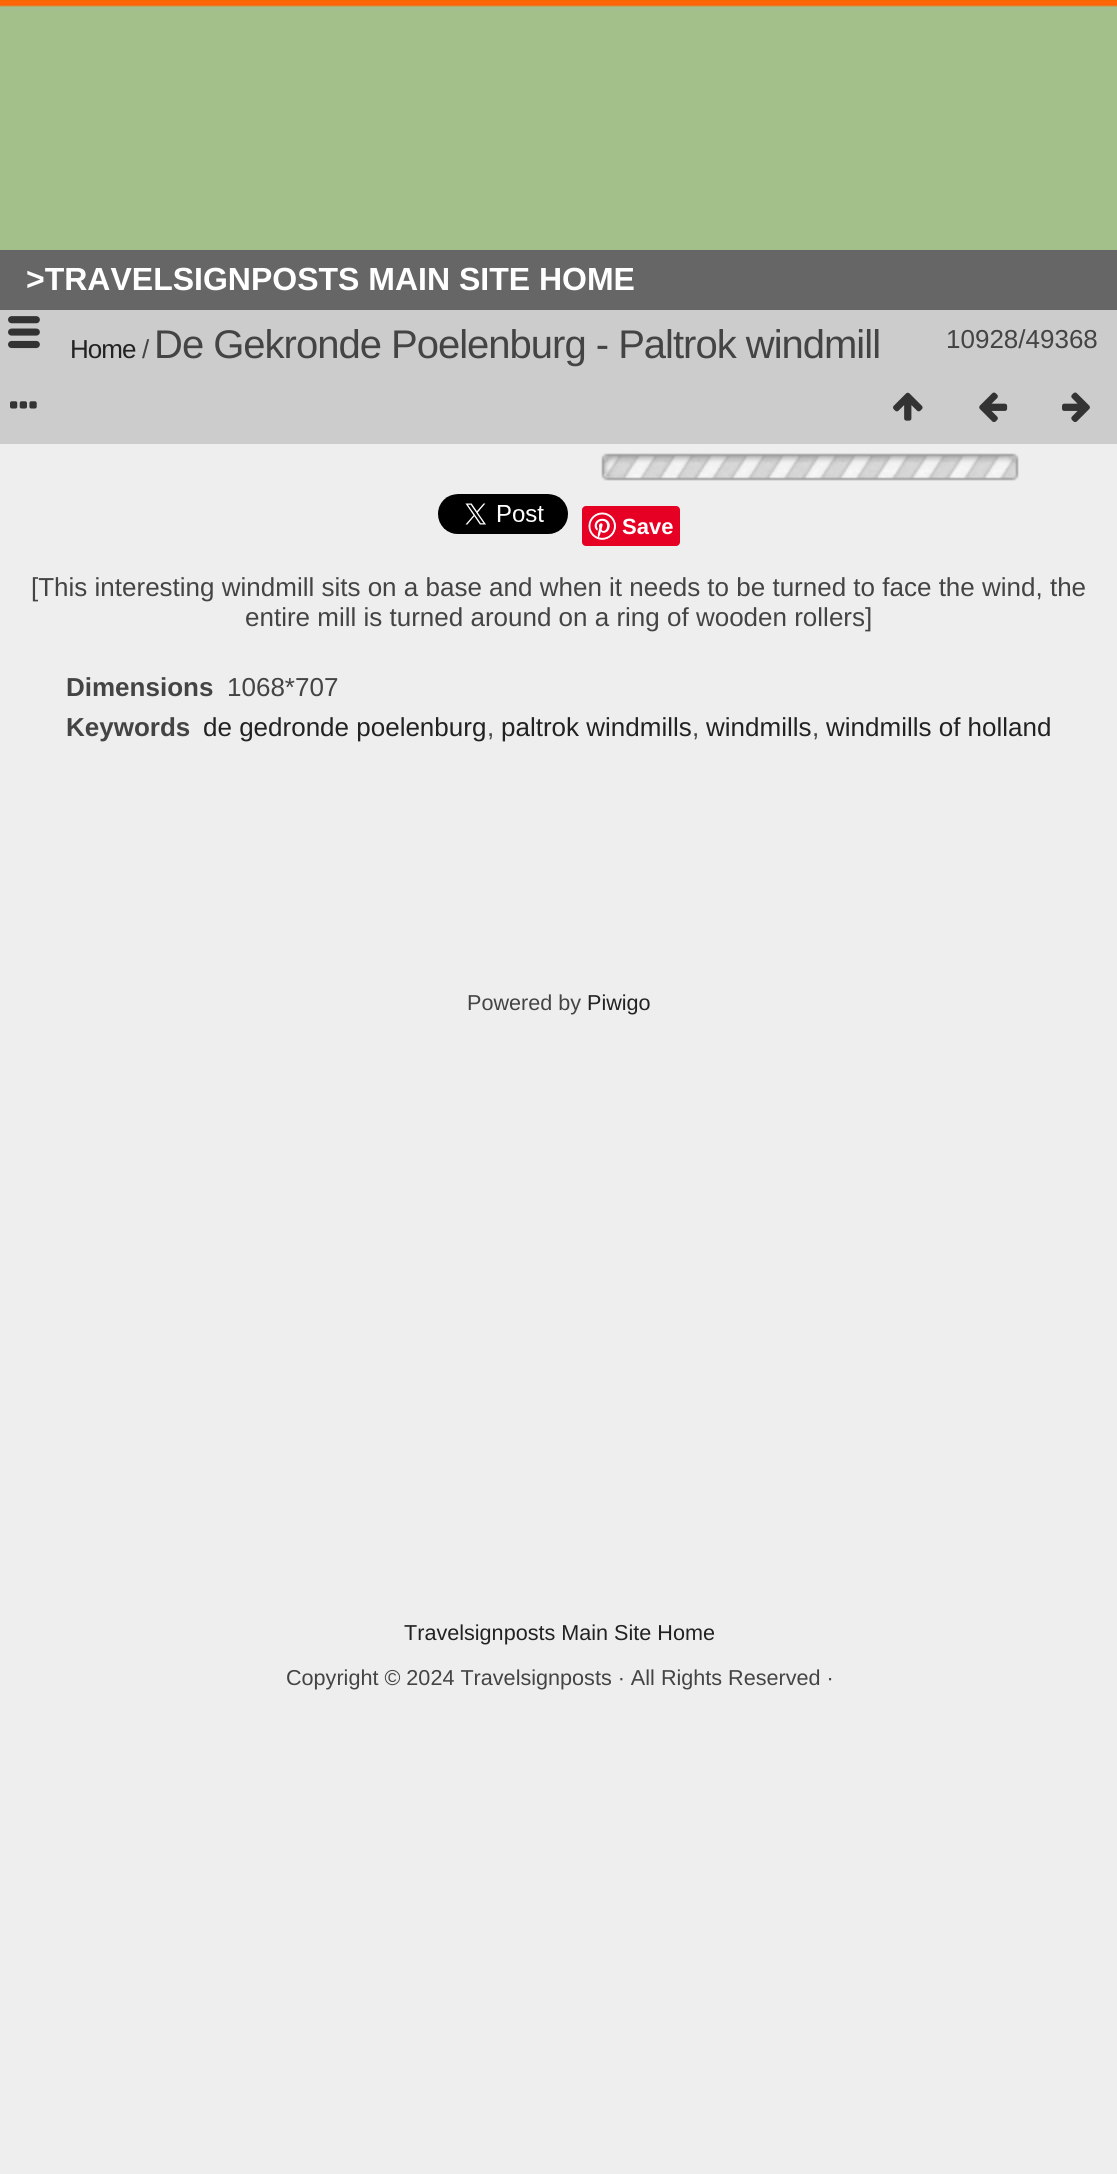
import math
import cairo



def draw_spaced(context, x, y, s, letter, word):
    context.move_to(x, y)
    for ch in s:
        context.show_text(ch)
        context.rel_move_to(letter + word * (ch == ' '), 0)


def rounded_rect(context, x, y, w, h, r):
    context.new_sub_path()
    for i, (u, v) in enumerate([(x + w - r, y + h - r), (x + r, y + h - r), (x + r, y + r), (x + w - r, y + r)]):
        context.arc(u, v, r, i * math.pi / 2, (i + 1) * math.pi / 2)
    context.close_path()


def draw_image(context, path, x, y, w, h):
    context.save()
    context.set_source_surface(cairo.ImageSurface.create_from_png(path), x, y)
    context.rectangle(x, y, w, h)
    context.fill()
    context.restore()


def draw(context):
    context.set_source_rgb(238 / 255, 238 / 255, 238 / 255)
    context.paint()
    context.set_source_rgb(163 / 255, 191 / 255, 138 / 255)
    context.rectangle(0, 10, 1117, 240)
    context.fill()
    draw_image(context, "images/1.png", 0, 0, 1117, 10)
    context.set_source_rgb(102 / 255, 102 / 255, 102 / 255)
    context.rectangle(0, 250, 1117, 60)
    context.fill()
    context.set_source_rgb(204 / 255, 204 / 255, 204 / 255)
    context.rectangle(0, 310, 1117, 134)
    context.fill()
    draw_image(context, "images/2.png", 8, 316, 32, 33)
    draw_image(context, "images/3.png", 10, 401, 27, 8)
    draw_image(context, "images/4.png", 893, 392, 30, 29)
    draw_image(context, "images/5.png", 979, 392, 29, 30)
    draw_image(context, "images/6.png", 1062, 392, 28, 30)
    draw_image(context, "images/7.png", 601, 453, 418, 28)
    draw_image(context, "images/8.png", 438, 494, 130, 40)
    context.set_source_rgb(230 / 255, 0, 35 / 255)
    rounded_rect(context, 582, 506, 98, 40, 4)
    context.fill()
    draw_image(context, "images/9.png", 588, 512, 28, 28)
    context.select_font_face("Liberation Sans", cairo.FontSlant.NORMAL, cairo.FontWeight.BOLD)
    context.set_font_size(32)
    context.set_source_rgb(1, 1, 1)
    context.move_to(26, 290)
    context.show_text(">TRAVELSIGNPOSTS MAIN SITE HOME")
    context.select_font_face("Liberation Sans")
    context.set_font_size(26)
    context.set_source_rgb(34 / 255, 34 / 255, 34 / 255)
    draw_spaced(context, 70, 358, "Home", -1, 0)
    context.set_source_rgb(68 / 255, 68 / 255, 68 / 255)
    draw_spaced(context, 142, 358, "/", -1, 0)
    context.set_font_size(40)
    draw_spaced(context, 154, 358, "De Gekronde Poelenburg - Paltrok windmill", -1, 0)
    context.set_font_size(26)
    context.move_to(946, 348)
    context.show_text("10928/49368")
    context.select_font_face("Liberation Sans", cairo.FontSlant.NORMAL, cairo.FontWeight.BOLD)
    context.set_font_size(22)
    context.set_source_rgb(1, 1, 1)
    context.move_to(622, 534)
    context.show_text("Save")
    context.select_font_face("Liberation Sans")
    context.set_font_size(26)
    context.set_source_rgb(68 / 255, 68 / 255, 68 / 255)
    context.move_to(31, 596)
    context.show_text("[This interesting windmill sits on a base and when it needs to be turned to face the wind, the")
    context.move_to(245, 626)
    context.show_text("entire mill is turned around on a ring of wooden rollers]")
    context.select_font_face("Liberation Sans", cairo.FontSlant.NORMAL, cairo.FontWeight.BOLD)
    context.move_to(66, 696)
    context.show_text("Dimensions")
    context.select_font_face("Liberation Sans")
    context.move_to(227, 696)
    context.show_text("1068*707")
    context.select_font_face("Liberation Sans", cairo.FontSlant.NORMAL, cairo.FontWeight.BOLD)
    context.move_to(66, 736)
    context.show_text("Keywords")
    context.select_font_face("Liberation Sans")
    context.set_source_rgb(34 / 255, 34 / 255, 34 / 255)
    context.move_to(203, 736)
    context.show_text("de gedronde poelenburg")
    context.set_source_rgb(68 / 255, 68 / 255, 68 / 255)
    context.move_to(487, 736)
    context.show_text(",")
    context.set_source_rgb(34 / 255, 34 / 255, 34 / 255)
    context.move_to(501, 736)
    context.show_text("paltrok windmills")
    context.set_source_rgb(68 / 255, 68 / 255, 68 / 255)
    context.move_to(692, 736)
    context.show_text(",")
    context.set_source_rgb(34 / 255, 34 / 255, 34 / 255)
    context.move_to(706, 736)
    context.show_text("windmills")
    context.set_source_rgb(68 / 255, 68 / 255, 68 / 255)
    context.move_to(812, 736)
    context.show_text(",")
    context.set_source_rgb(34 / 255, 34 / 255, 34 / 255)
    context.move_to(826, 736)
    context.show_text("windmills of holland")
    context.set_font_size(21.6)
    context.set_source_rgb(68 / 255, 68 / 255, 68 / 255)
    context.move_to(467, 1010)
    context.show_text("Powered by")
    context.set_source_rgb(34 / 255, 34 / 255, 34 / 255)
    context.move_to(587, 1010)
    context.show_text("Piwigo")
    context.move_to(404, 1640)
    context.show_text("Travelsignposts Main Site Home")
    context.set_source_rgb(68 / 255, 68 / 255, 68 / 255)
    context.move_to(286, 1685)
    context.show_text("Copyright © 2024 Travelsignposts · All Rights Reserved ·")


surface = cairo.ImageSurface(cairo.Format.RGB24, 1117, 2174)
context = cairo.Context(surface)
options = cairo.FontOptions()
options.set_hint_metrics(cairo.HintMetrics.OFF)
options.set_hint_style(cairo.HintStyle.NONE)
context.set_font_options(options)
context.set_miter_limit(4)
draw(context)
surface.write_to_png("out.png")
